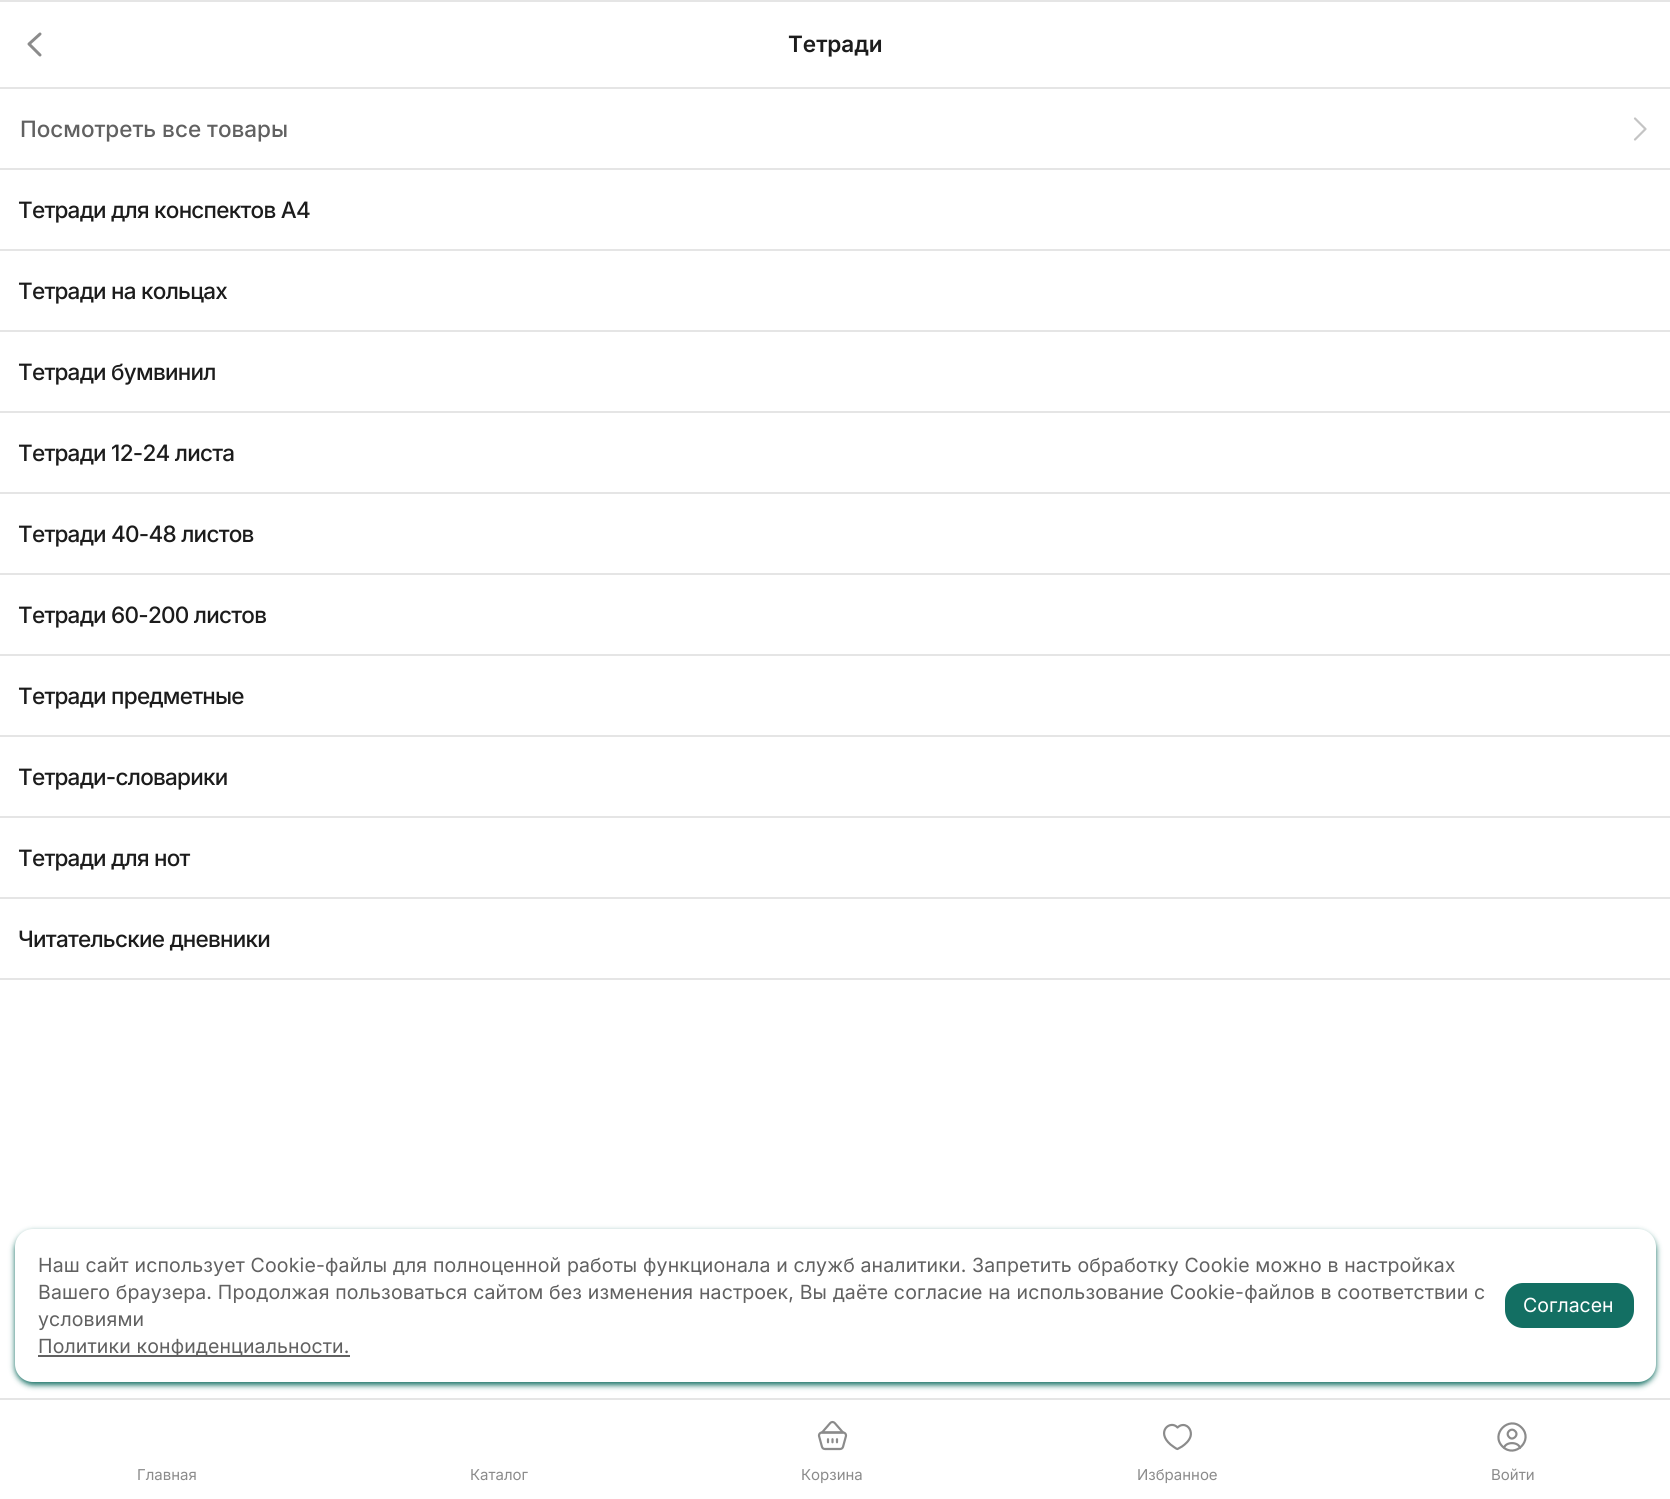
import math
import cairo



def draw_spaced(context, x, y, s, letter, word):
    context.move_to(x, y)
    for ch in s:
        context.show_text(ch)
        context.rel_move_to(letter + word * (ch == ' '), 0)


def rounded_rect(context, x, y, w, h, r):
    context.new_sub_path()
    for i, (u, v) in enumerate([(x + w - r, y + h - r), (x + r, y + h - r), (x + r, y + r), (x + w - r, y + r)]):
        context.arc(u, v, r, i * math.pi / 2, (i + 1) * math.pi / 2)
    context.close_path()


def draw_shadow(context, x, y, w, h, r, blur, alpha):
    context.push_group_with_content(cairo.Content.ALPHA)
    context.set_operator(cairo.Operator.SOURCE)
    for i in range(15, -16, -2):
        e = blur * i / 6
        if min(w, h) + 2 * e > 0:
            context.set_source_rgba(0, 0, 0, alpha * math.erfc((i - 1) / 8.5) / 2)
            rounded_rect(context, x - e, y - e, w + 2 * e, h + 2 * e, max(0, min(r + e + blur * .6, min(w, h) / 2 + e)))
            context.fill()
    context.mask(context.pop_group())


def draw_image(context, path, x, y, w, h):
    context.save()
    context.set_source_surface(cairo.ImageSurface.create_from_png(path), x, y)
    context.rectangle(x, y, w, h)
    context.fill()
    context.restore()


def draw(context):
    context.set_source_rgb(1, 1, 1)
    context.paint()
    context.set_source_rgb(229 / 255, 229 / 255, 229 / 255)
    context.rectangle(0, 0, 1670, 2)
    context.fill()
    context.rectangle(0, 87, 1670, 2)
    context.fill()
    context.new_path()
    context.move_to(40, 34)
    context.line_to(29, 44)
    context.line_to(40, 55)
    context.set_source_rgb(139 / 255, 139 / 255, 139 / 255)
    context.set_line_width(3)
    context.set_line_cap(cairo.LineCap.ROUND)
    context.set_line_join(cairo.LineJoin.ROUND)
    context.stroke()
    context.new_path()
    context.move_to(1635, 118.5)
    context.line_to(1645.5, 129)
    context.line_to(1635, 139.5)
    context.set_source_rgb(196 / 255, 196 / 255, 196 / 255)
    context.set_line_width(2.2)
    context.stroke()
    context.set_source_rgb(229 / 255, 229 / 255, 229 / 255)
    context.rectangle(0, 168, 1670, 2)
    context.fill()
    context.rectangle(0, 249, 1670, 2)
    context.fill()
    context.rectangle(0, 330, 1670, 2)
    context.fill()
    context.rectangle(0, 411, 1670, 2)
    context.fill()
    context.rectangle(0, 492, 1670, 2)
    context.fill()
    context.rectangle(0, 573, 1670, 2)
    context.fill()
    context.rectangle(0, 654, 1670, 2)
    context.fill()
    context.rectangle(0, 735, 1670, 2)
    context.fill()
    context.rectangle(0, 816, 1670, 2)
    context.fill()
    context.rectangle(0, 897, 1670, 2)
    context.fill()
    context.rectangle(0, 978, 1670, 2)
    context.fill()
    context.set_source_rgb(19 / 255, 111 / 255, 99 / 255)
    draw_shadow(context, 15, 1232, 1641, 153, 18, 3, 1)
    context.set_source_rgb(1, 1, 1)
    rounded_rect(context, 15, 1229, 1641, 153, 18)
    context.fill()
    context.set_source_rgb(97 / 255, 97 / 255, 97 / 255)
    context.rectangle(38, 1355, 312, 2)
    context.fill()
    context.set_source_rgb(19 / 255, 111 / 255, 99 / 255)
    rounded_rect(context, 1505, 1283, 129, 45, 18)
    context.fill()
    context.set_source_rgb(229 / 255, 229 / 255, 229 / 255)
    context.rectangle(0, 1398, 1670, 2)
    context.fill()
    draw_image(context, "images/1.png", 817, 1420, 31, 31)
    context.new_path()
    context.move_to(1183, 1425)
    context.curve_to(1189, 1425, 1192, 1431.5, 1190.5, 1436.5)
    context.curve_to(1189, 1441, 1185.5, 1444, 1182, 1446.5)
    context.line_to(1177.5, 1449)
    context.curve_to(1176, 1449, 1171.5, 1445, 1170.5, 1444.5)
    context.curve_to(1155.5, 1431.5, 1170.5, 1419.5, 1177.5, 1427.5)
    context.curve_to(1178.5, 1426.5, 1180.5, 1425, 1183, 1425)
    context.close_path()
    context.set_source_rgb(139 / 255, 139 / 255, 139 / 255)
    context.stroke()
    context.new_path()
    context.move_to(1521.5, 1427.5)
    context.curve_to(1534, 1440, 1515, 1459, 1502.5, 1446.5)
    context.curve_to(1490, 1434, 1509, 1415, 1521.5, 1427.5)
    context.move_to(1520, 1448)
    context.curve_to(1518.5, 1441.5, 1505.5, 1441.5, 1504, 1448)
    context.move_to(1515, 1431)
    context.curve_to(1519.5, 1435, 1512.5, 1441.5, 1509, 1437)
    context.curve_to(1505, 1433, 1511, 1427, 1515, 1431)
    context.close_path()
    context.stroke()
    context.select_font_face("Inter SemiBold")
    context.set_font_size(22.5)
    context.set_source_rgb(28 / 255, 28 / 255, 28 / 255)
    context.move_to(788, 52)
    context.show_text("Тетради")
    context.select_font_face("Inter Medium")
    context.set_source_rgb(97 / 255, 97 / 255, 97 / 255)
    context.move_to(20, 137)
    context.show_text("Посмотреть все товары")
    context.set_source_rgb(28 / 255, 28 / 255, 28 / 255)
    draw_spaced(context, 18, 218, "Тетради для конспектов А4", -0.75, 0)
    draw_spaced(context, 18, 299, "Тетради на кольцах", -0.75, 0)
    draw_spaced(context, 18, 380, "Тетради бумвинил", -0.75, 0)
    draw_spaced(context, 18, 461, "Тетради 12-24 листа", -0.75, 0)
    draw_spaced(context, 18, 542, "Тетради 40-48 листов", -0.75, 0)
    draw_spaced(context, 18, 623, "Тетради 60-200 листов", -0.75, 0)
    draw_spaced(context, 18, 704, "Тетради предметные", -0.75, 0)
    draw_spaced(context, 18, 785, "Тетради-словарики", -0.75, 0)
    draw_spaced(context, 18, 866, "Тетради для нот", -0.75, 0)
    draw_spaced(context, 18, 947, "Читательские дневники", -0.75, 0)
    context.select_font_face("Inter")
    context.set_font_size(19.5)
    context.set_source_rgb(97 / 255, 97 / 255, 97 / 255)
    draw_spaced(context, 38, 1272, "Наш сайт использует Сookie-файлы для полноценной работы функционала и служб аналитики. Запретить обработку Cookie можно в настройках", 0.15, 0)
    draw_spaced(context, 38, 1299, "Вашего браузера. Продолжая пользоваться сайтом без изменения настроек, Вы даёте согласие на использование Cookie-файлов в соответствии с", 0.15, 0)
    draw_spaced(context, 38, 1326, "условиями", 0.15, 0)
    draw_spaced(context, 38, 1353, "Политики конфиденциальности.", 0.15, 0)
    context.set_source_rgb(1, 1, 1)
    context.move_to(1523, 1312)
    context.show_text("Согласен")
    context.set_font_size(15)
    context.set_source_rgb(139 / 255, 139 / 255, 139 / 255)
    context.move_to(137, 1480)
    context.show_text("Главная")
    context.move_to(470, 1480)
    context.show_text("Каталог")
    context.move_to(801, 1480)
    context.show_text("Корзина")
    context.move_to(1137, 1480)
    context.show_text("Избранное")
    context.move_to(1491, 1480)
    context.show_text("Войти")


surface = cairo.ImageSurface(cairo.Format.RGB24, 1670, 1499)
context = cairo.Context(surface)
options = cairo.FontOptions()
options.set_hint_metrics(cairo.HintMetrics.OFF)
options.set_hint_style(cairo.HintStyle.NONE)
context.set_font_options(options)
context.set_miter_limit(4)
draw(context)
surface.write_to_png("out.png")
